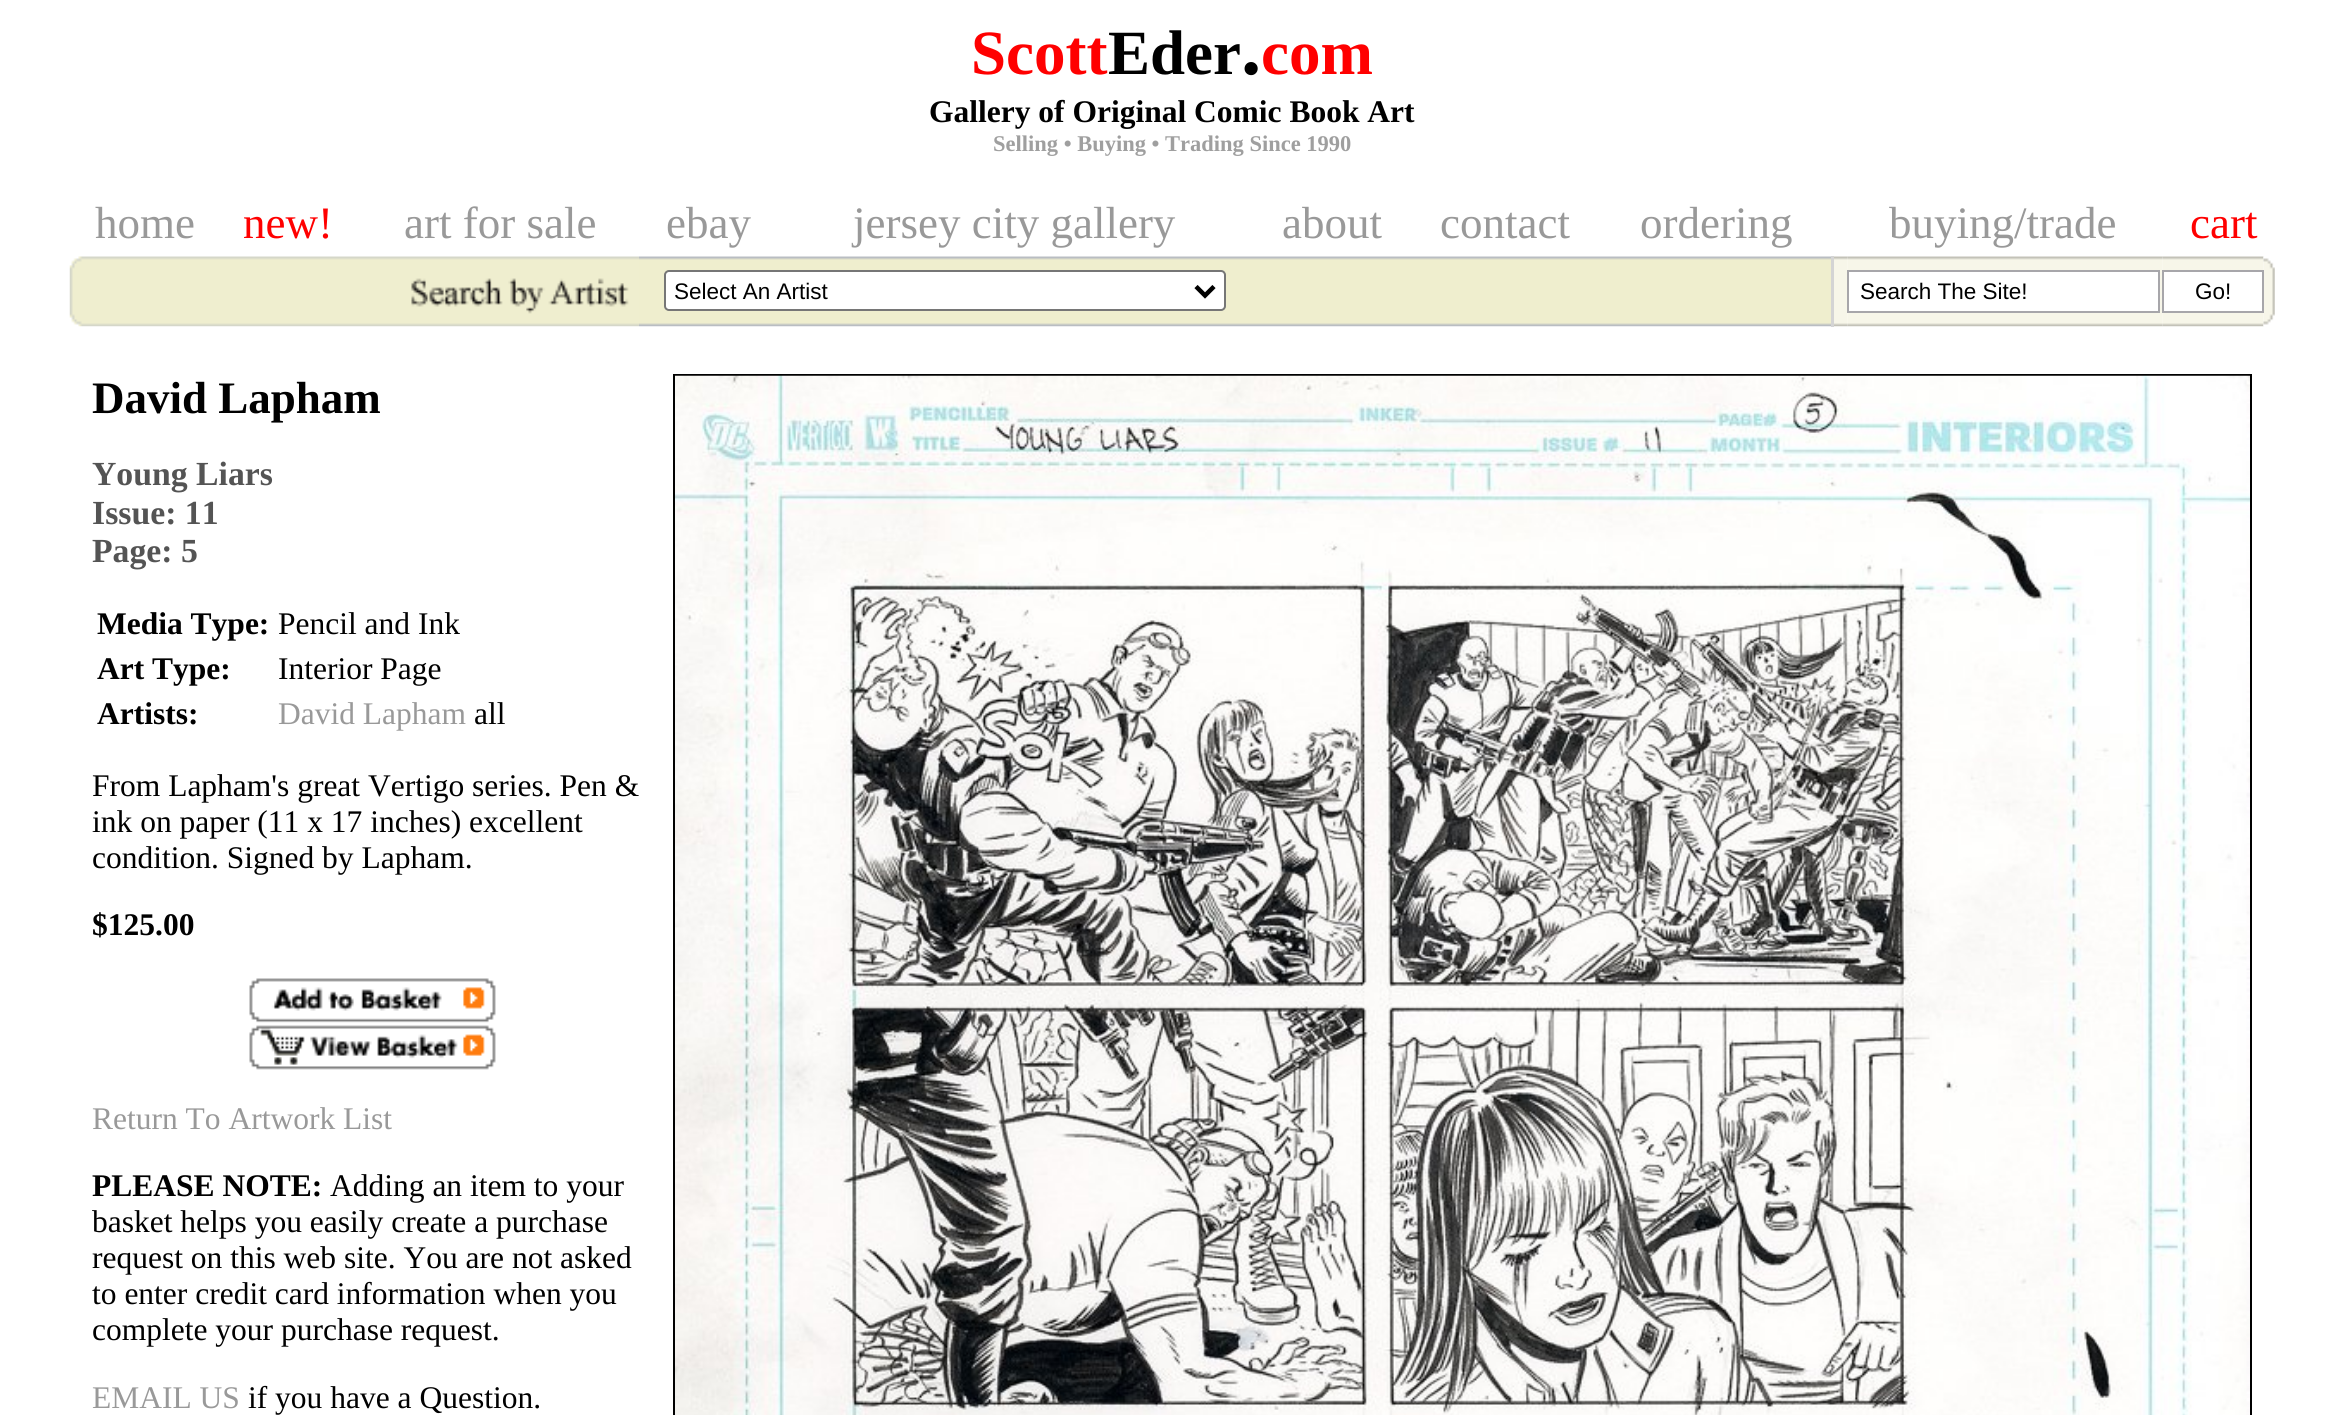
import math
import cairo



def rounded_rect(context, x, y, w, h, r):
    context.new_sub_path()
    for i, (u, v) in enumerate([(x + w - r, y + h - r), (x + r, y + h - r), (x + r, y + r), (x + w - r, y + r)]):
        context.arc(u, v, r, i * math.pi / 2, (i + 1) * math.pi / 2)
    context.close_path()


def draw_image(context, path, x, y, w, h):
    context.save()
    context.set_source_surface(cairo.ImageSurface.create_from_png(path), x, y)
    context.rectangle(x, y, w, h)
    context.fill()
    context.restore()


def draw(context):
    context.set_source_rgb(1, 1, 1)
    context.paint()
    draw_image(context, "images/1.png", 69, 256, 570, 71)
    draw_image(context, "images/2.png", 639, 256, 1192, 71)
    context.set_source_rgb(1, 1, 1)
    rounded_rect(context, 665, 271, 560, 39, 4)
    context.fill_preserve()
    context.set_source_rgb(118 / 255, 118 / 255, 118 / 255)
    context.stroke()
    context.new_path()
    context.move_to(1196, 286.5)
    context.line_to(1205, 295.5)
    context.line_to(1214, 286.5)
    context.set_source_rgb(0, 0, 0)
    context.set_line_width(4.5)
    context.stroke()
    context.set_source_rgb(212 / 255, 212 / 255, 212 / 255)
    context.rectangle(1831, 256, 3, 71)
    context.fill()
    draw_image(context, "images/3.png", 1834, 256, 14, 71)
    draw_image(context, "images/4.png", 1847, 256, 313, 71)
    context.set_source_rgb(1, 1, 1)
    context.rectangle(1848, 271, 311, 41)
    context.fill_preserve()
    context.set_source_rgb(167 / 255, 166 / 255, 170 / 255)
    context.set_line_width(2)
    context.stroke()
    draw_image(context, "images/5.png", 2160, 256, 3, 71)
    draw_image(context, "images/6.png", 2162, 256, 102, 71)
    draw_image(context, "images/7.png", 2263, 256, 12, 70)
    context.set_source_rgb(1, 1, 1)
    context.rectangle(2163, 271, 100, 41)
    context.fill_preserve()
    context.set_source_rgb(167 / 255, 166 / 255, 170 / 255)
    context.stroke()
    draw_image(context, "images/8.png", 249, 978, 247, 45)
    draw_image(context, "images/9.png", 249, 1025, 247, 45)
    context.rectangle(674, 375, 1577, 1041)
    context.set_source_rgb(0, 0, 0)
    context.stroke()
    draw_image(context, "images/10.png", 675, 375, 1575, 1040)
    context.select_font_face("Liberation Serif", cairo.FontSlant.NORMAL, cairo.FontWeight.BOLD)
    context.set_font_size(63)
    context.set_source_rgb(1, 0, 0)
    context.move_to(971, 74)
    context.show_text("Scott")
    context.set_source_rgb(0, 0, 0)
    context.move_to(1108, 74)
    context.show_text("Eder")
    context.set_font_size(81)
    context.move_to(1241, 74)
    context.show_text(".")
    context.set_font_size(63)
    context.set_source_rgb(1, 0, 0)
    context.move_to(1261, 74)
    context.show_text("com")
    context.set_font_size(31.5)
    context.set_source_rgb(0, 0, 0)
    context.move_to(929, 122)
    context.show_text("Gallery of Original Comic Book Art")
    context.set_font_size(22.5)
    context.set_source_rgb(159 / 255, 159 / 255, 159 / 255)
    context.move_to(993, 151)
    context.show_text("Selling • Buying • Trading Since 1990")
    context.select_font_face("Liberation Serif")
    context.set_font_size(45)
    context.set_source_rgb(153 / 255, 153 / 255, 153 / 255)
    context.move_to(95, 238)
    context.show_text("home")
    context.set_source_rgb(1, 0, 0)
    context.move_to(243, 238)
    context.show_text("new!")
    context.set_source_rgb(153 / 255, 153 / 255, 153 / 255)
    context.move_to(404, 238)
    context.show_text("art for sale")
    context.move_to(666, 238)
    context.show_text("ebay")
    context.move_to(853, 238)
    context.show_text("jersey city gallery")
    context.move_to(1282, 238)
    context.show_text("about")
    context.move_to(1440, 238)
    context.show_text("contact")
    context.move_to(1640, 238)
    context.show_text("ordering")
    context.move_to(1889, 238)
    context.show_text("buying/trade")
    context.set_source_rgb(1, 0, 0)
    context.move_to(2190, 238)
    context.show_text("cart")
    context.select_font_face("Liberation Sans")
    context.set_font_size(22.5)
    context.set_source_rgb(0, 0, 0)
    context.move_to(674, 299)
    context.show_text("Select An Artist")
    context.move_to(1860, 299)
    context.show_text("Search The Site!")
    context.move_to(2195, 299)
    context.show_text("Go!")
    context.select_font_face("Liberation Serif", cairo.FontSlant.NORMAL, cairo.FontWeight.BOLD)
    context.set_font_size(45)
    context.move_to(92, 413)
    context.show_text("David Lapham")
    context.set_font_size(33.75)
    context.set_source_rgb(84 / 255, 84 / 255, 84 / 255)
    context.move_to(92, 485)
    context.show_text("Young Liars")
    context.move_to(92, 524)
    context.show_text("Issue: 11")
    context.move_to(92, 562)
    context.show_text("Page: 5")
    context.set_font_size(31.5)
    context.set_source_rgb(0, 0, 0)
    context.move_to(97, 634)
    context.show_text("Media Type:")
    context.select_font_face("Liberation Serif")
    context.move_to(278, 634)
    context.show_text("Pencil and Ink")
    context.select_font_face("Liberation Serif", cairo.FontSlant.NORMAL, cairo.FontWeight.BOLD)
    context.move_to(97, 679)
    context.show_text("Art Type:")
    context.select_font_face("Liberation Serif")
    context.move_to(278, 679)
    context.show_text("Interior Page")
    context.select_font_face("Liberation Serif", cairo.FontSlant.NORMAL, cairo.FontWeight.BOLD)
    context.move_to(97, 724)
    context.show_text("Artists:")
    context.select_font_face("Liberation Serif")
    context.set_source_rgb(153 / 255, 153 / 255, 153 / 255)
    context.move_to(278, 724)
    context.show_text("David Lapham")
    context.set_source_rgb(0, 0, 0)
    context.move_to(474, 724)
    context.show_text("all")
    context.move_to(92, 796)
    context.show_text("From Lapham's great Vertigo series. Pen &")
    context.move_to(92, 832)
    context.show_text("ink on paper (11 x 17 inches) excellent")
    context.move_to(92, 868)
    context.show_text("condition. Signed by Lapham.")
    context.select_font_face("Liberation Serif", cairo.FontSlant.NORMAL, cairo.FontWeight.BOLD)
    context.move_to(92, 935)
    context.show_text("$125.00")
    context.select_font_face("Liberation Serif")
    context.set_source_rgb(153 / 255, 153 / 255, 153 / 255)
    context.move_to(92, 1129)
    context.show_text("Return To Artwork List")
    context.select_font_face("Liberation Serif", cairo.FontSlant.NORMAL, cairo.FontWeight.BOLD)
    context.set_source_rgb(0, 0, 0)
    context.move_to(92, 1196)
    context.show_text("PLEASE NOTE:")
    context.select_font_face("Liberation Serif")
    context.move_to(330, 1196)
    context.show_text("Adding an item to your")
    context.move_to(92, 1232)
    context.show_text("basket helps you easily create a purchase")
    context.move_to(92, 1268)
    context.show_text("request on this web site. You are not asked")
    context.move_to(92, 1304)
    context.show_text("to enter credit card information when you")
    context.move_to(92, 1340)
    context.show_text("complete your purchase request.")
    context.set_source_rgb(153 / 255, 153 / 255, 153 / 255)
    context.move_to(92, 1408)
    context.show_text("EMAIL US")
    context.set_source_rgb(0, 0, 0)
    context.move_to(248, 1408)
    context.show_text("if you have a Question.")


surface = cairo.ImageSurface(cairo.Format.RGB24, 2343, 1415)
context = cairo.Context(surface)
options = cairo.FontOptions()
options.set_hint_metrics(cairo.HintMetrics.OFF)
options.set_hint_style(cairo.HintStyle.NONE)
context.set_font_options(options)
context.set_miter_limit(4)
draw(context)
surface.write_to_png("out.png")
